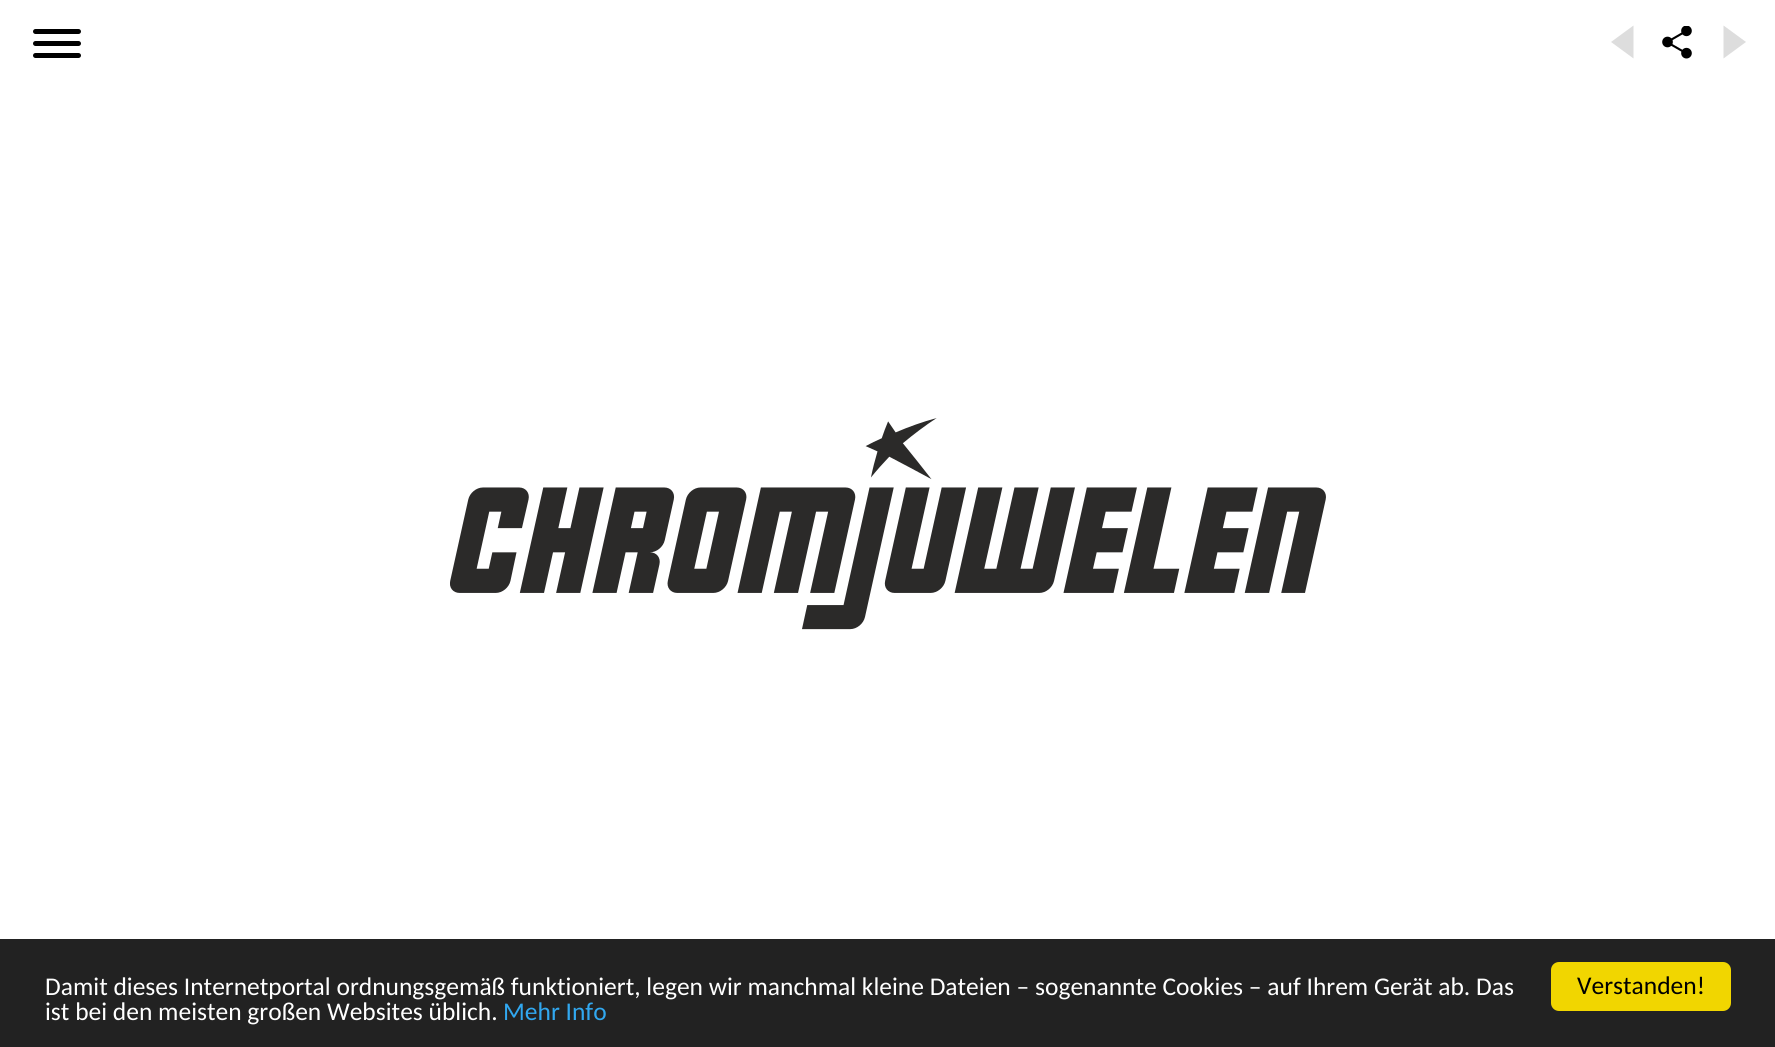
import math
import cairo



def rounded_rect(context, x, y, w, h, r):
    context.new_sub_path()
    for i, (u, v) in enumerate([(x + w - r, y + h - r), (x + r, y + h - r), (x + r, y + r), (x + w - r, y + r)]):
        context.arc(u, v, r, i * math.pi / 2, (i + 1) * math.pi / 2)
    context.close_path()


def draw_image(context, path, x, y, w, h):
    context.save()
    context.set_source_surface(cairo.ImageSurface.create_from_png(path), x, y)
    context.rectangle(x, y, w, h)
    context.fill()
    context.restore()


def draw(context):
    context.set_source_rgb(1, 1, 1)
    context.paint()
    context.set_source_rgb(221 / 255, 221 / 255, 221 / 255)
    context.new_path()
    context.move_to(1633.5, 25.5)
    context.line_to(1633.5, 58.5)
    context.line_to(1611, 42)
    context.close_path()
    context.fill()
    context.new_path()
    context.move_to(1723.5, 58.5)
    context.line_to(1723.5, 25.5)
    context.line_to(1746, 42)
    context.close_path()
    context.fill()
    context.set_source_rgb(0, 0, 0)
    rounded_rect(context, 33, 29, 48, 5, 2.5)
    context.fill()
    rounded_rect(context, 33, 41, 48, 5, 2.5)
    context.fill()
    rounded_rect(context, 33, 53, 48, 5, 2.5)
    context.fill()
    draw_image(context, "images/1.png", 1662, 26, 30, 33)
    draw_image(context, "images/2.png", 450, 418, 876, 212)
    context.set_source_rgb(34 / 255, 34 / 255, 34 / 255)
    context.rectangle(0, 939, 1775, 108)
    context.fill()
    context.set_source_rgb(241 / 255, 214 / 255, 0)
    rounded_rect(context, 1551, 962, 180, 49, 8)
    context.fill()
    context.select_font_face("Carlito")
    context.set_font_size(25.5)
    context.set_source_rgb(1, 1, 1)
    context.move_to(45, 995)
    context.show_text("Damit dieses Internetportal ordnungsgemäß funktioniert, legen wir manchmal kleine Dateien – sogenannte Cookies – auf Ihrem Gerät ab. Das")
    context.move_to(45, 1020)
    context.show_text("ist bei den meisten großen Websites üblich.")
    context.set_source_rgb(49 / 255, 168 / 255, 240 / 255)
    context.move_to(503, 1020)
    context.show_text("Mehr Info")
    context.set_source_rgb(0, 0, 0)
    context.move_to(1577, 994)
    context.show_text("Verstanden!")


surface = cairo.ImageSurface(cairo.Format.RGB24, 1775, 1047)
context = cairo.Context(surface)
options = cairo.FontOptions()
options.set_hint_metrics(cairo.HintMetrics.OFF)
options.set_hint_style(cairo.HintStyle.NONE)
context.set_font_options(options)
context.set_miter_limit(4)
draw(context)
surface.write_to_png("out.png")
